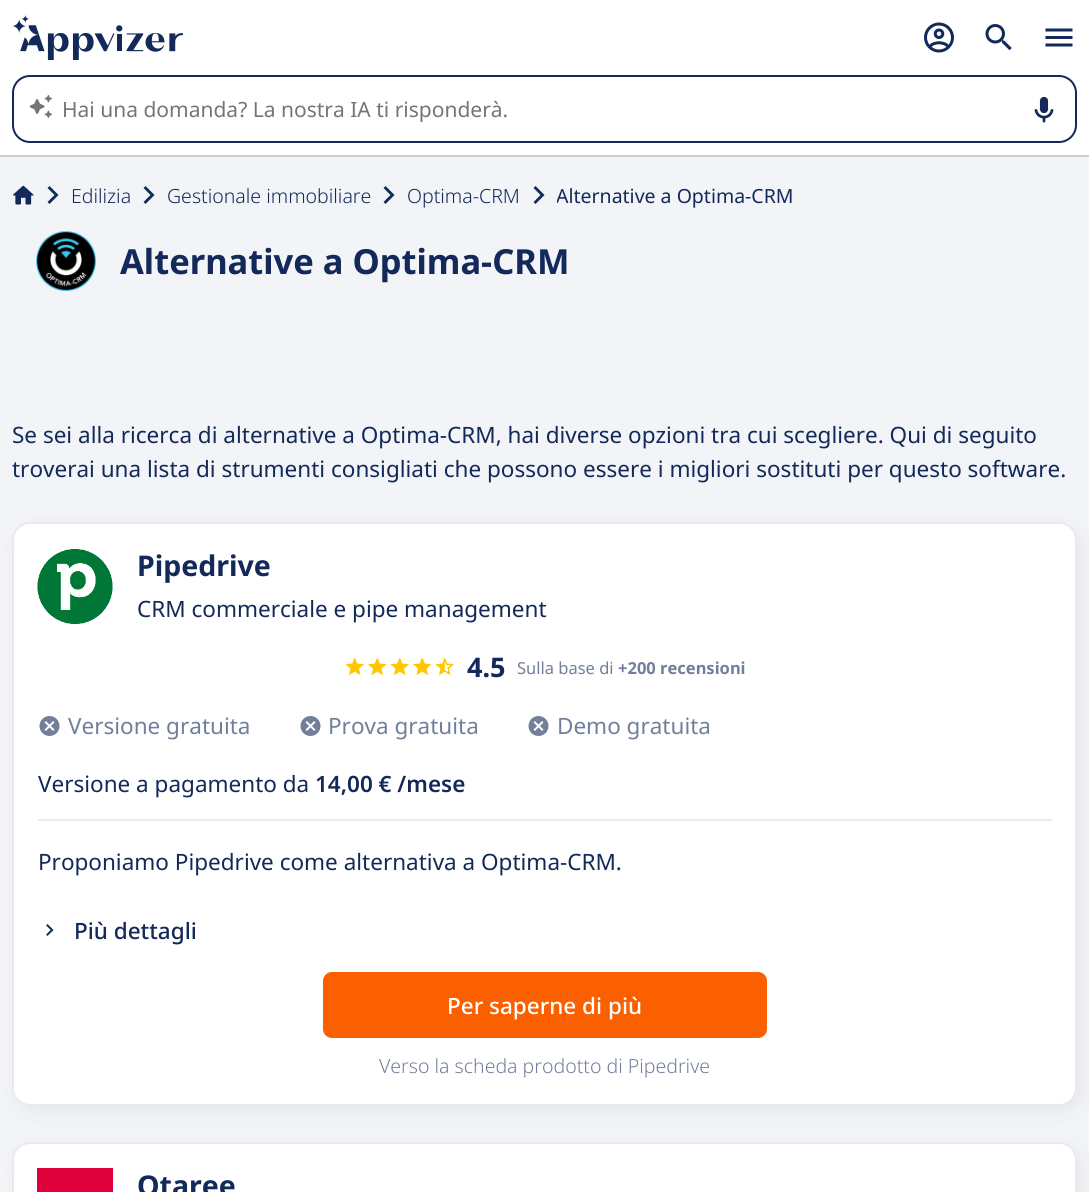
import math
import cairo



def rounded_rect(context, x, y, w, h, r):
    context.new_sub_path()
    for i, (u, v) in enumerate([(x + w - r, y + h - r), (x + r, y + h - r), (x + r, y + r), (x + w - r, y + r)]):
        context.arc(u, v, r, i * math.pi / 2, (i + 1) * math.pi / 2)
    context.close_path()


def draw_shadow(context, x, y, w, h, r, blur, alpha):
    context.push_group_with_content(cairo.Content.ALPHA)
    context.set_operator(cairo.Operator.SOURCE)
    for i in range(15, -16, -2):
        e = blur * i / 6
        if min(w, h) + 2 * e > 0:
            context.set_source_rgba(0, 0, 0, alpha * math.erfc((i - 1) / 8.5) / 2)
            rounded_rect(context, x - e, y - e, w + 2 * e, h + 2 * e, max(0, min(r + e + blur * .6, min(w, h) / 2 + e)))
            context.fill()
    context.mask(context.pop_group())


def draw_image(context, path, x, y, w, h):
    context.save()
    context.set_source_surface(cairo.ImageSurface.create_from_png(path), x, y)
    context.rectangle(x, y, w, h)
    context.fill()
    context.restore()


def draw(context):
    context.set_source_rgb(242 / 255, 244 / 255, 248 / 255)
    context.paint()
    context.set_source_rgb(1, 1, 1)
    context.rectangle(0, 0, 1089, 155)
    context.fill()
    context.set_source_rgb(204 / 255, 204 / 255, 204 / 255)
    context.rectangle(0, 155, 1089, 2)
    context.fill()
    draw_image(context, "images/1.png", 12, 15, 171, 45)
    draw_image(context, "images/2.png", 924, 22, 30, 31)
    draw_image(context, "images/3.png", 985, 24, 27, 27)
    draw_image(context, "images/4.png", 1045, 28, 28, 19)
    rounded_rect(context, 13, 76, 1063, 66, 17)
    context.set_source_rgb(18 / 255, 41 / 255, 89 / 255)
    context.stroke()
    draw_image(context, "images/5.png", 29, 95, 23, 23)
    draw_image(context, "images/6.png", 1034, 96, 20, 27)
    draw_image(context, "images/7.png", 13, 185, 21, 20)
    context.new_path()
    context.move_to(47.5, 202)
    context.line_to(54.5, 195)
    context.line_to(47.5, 188)
    context.line_to(49.5, 186)
    context.line_to(58.5, 195)
    context.line_to(49.5, 204)
    context.close_path()
    context.fill()
    context.new_path()
    context.move_to(143.5, 202)
    context.line_to(150.5, 195)
    context.line_to(143.5, 188)
    context.line_to(145.5, 186)
    context.line_to(154.5, 195)
    context.line_to(145.5, 204)
    context.close_path()
    context.fill()
    context.new_path()
    context.move_to(383.5, 202)
    context.line_to(390.5, 195)
    context.line_to(383.5, 188)
    context.line_to(385.5, 186)
    context.line_to(394.5, 195)
    context.line_to(385.5, 204)
    context.close_path()
    context.fill()
    context.new_path()
    context.move_to(533.5, 202)
    context.line_to(540.5, 195)
    context.line_to(533.5, 188)
    context.line_to(535.5, 186)
    context.line_to(544.5, 195)
    context.line_to(535.5, 204)
    context.close_path()
    context.fill()
    draw_image(context, "images/8.png", 36, 231, 60, 60)
    context.set_source_rgb(0, 0, 0)
    draw_shadow(context, 17, 528, 1065, 584, 18, 9, 0.05)
    context.set_source_rgb(1, 1, 1)
    rounded_rect(context, 13, 523, 1063, 582, 17)
    context.fill_preserve()
    context.set_source_rgb(232 / 255, 234 / 255, 239 / 255)
    context.stroke()
    context.rectangle(38, 819, 1014, 2)
    context.fill()
    draw_image(context, "images/9.png", 37, 549, 76, 75)
    draw_image(context, "images/10.png", 345, 657, 19, 19)
    draw_image(context, "images/11.png", 368, 657, 19, 19)
    draw_image(context, "images/10.png", 390, 657, 19, 19)
    draw_image(context, "images/11.png", 413, 657, 19, 19)
    draw_image(context, "images/12.png", 435, 657, 19, 19)
    draw_image(context, "images/13.png", 39, 716, 21, 20)
    draw_image(context, "images/13.png", 300, 716, 21, 20)
    draw_image(context, "images/13.png", 528, 716, 21, 20)
    draw_image(context, "images/14.png", 46, 924, 8, 12)
    context.set_source_rgb(250 / 255, 95 / 255, 0)
    rounded_rect(context, 324, 973, 442, 64, 8)
    context.fill_preserve()
    context.stroke()
    context.set_source_rgb(0, 0, 0)
    draw_shadow(context, 17, 1148, 1065, 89, 18, 9, 0.05)
    context.set_source_rgb(1, 1, 1)
    rounded_rect(context, 13, 1143, 1063, 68, 17)
    context.fill_preserve()
    context.set_source_rgb(232 / 255, 234 / 255, 239 / 255)
    context.stroke()
    context.set_source_rgb(222 / 255, 0, 59 / 255)
    context.rectangle(37, 1168, 76, 24)
    context.fill()
    context.select_font_face("Noto Sans")
    context.set_font_size(21)
    context.set_source_rgb(117 / 255, 117 / 255, 117 / 255)
    context.move_to(62, 117)
    context.show_text("Hai una domanda? La nostra IA ti risponderà.")
    context.select_font_face("Noto Sans Light")
    context.set_font_size(19.5)
    context.set_source_rgb(18 / 255, 41 / 255, 89 / 255)
    context.move_to(71, 203)
    context.show_text("Edilizia")
    context.move_to(167, 203)
    context.show_text("Gestionale immobiliare")
    context.move_to(407, 203)
    context.show_text("Optima-CRM")
    context.save()
    context.rectangle(557, 180, 237, 30)
    context.clip()
    context.select_font_face("Noto Sans")
    context.move_to(556, 203)
    context.show_text("Alternative a Optima-CRM")
    context.restore()
    context.select_font_face("Noto Sans", cairo.FontSlant.NORMAL, cairo.FontWeight.BOLD)
    context.set_font_size(34.5)
    context.move_to(120, 274)
    context.show_text("Alternative a Optima-CRM")
    context.select_font_face("Noto Sans")
    context.set_font_size(22.5)
    context.move_to(12, 443)
    context.show_text("Se sei alla ricerca di alternative a Optima-CRM, hai diverse opzioni tra cui scegliere. Qui di seguito")
    context.move_to(12, 477)
    context.show_text("troverai una lista di strumenti consigliati che possono essere i migliori sostituti per questo software.")
    context.select_font_face("Noto Sans", cairo.FontSlant.NORMAL, cairo.FontWeight.BOLD)
    context.set_font_size(28.5)
    context.move_to(137, 576)
    context.show_text("Pipedrive")
    context.select_font_face("Noto Sans")
    context.set_font_size(22.5)
    context.move_to(137, 617)
    context.show_text("CRM commerciale e pipe management")
    context.select_font_face("Noto Sans", cairo.FontSlant.NORMAL, cairo.FontWeight.BOLD)
    context.set_font_size(27)
    context.move_to(467, 677)
    context.show_text("4.5")
    context.select_font_face("Noto Sans")
    context.set_font_size(16.5)
    context.set_source_rgb(113 / 255, 127 / 255, 155 / 255)
    context.move_to(517, 674)
    context.show_text("Sulla base di")
    context.select_font_face("Noto Sans", cairo.FontSlant.NORMAL, cairo.FontWeight.BOLD)
    context.move_to(618, 674)
    context.show_text("+200 recensioni")
    context.select_font_face("Noto Sans")
    context.set_font_size(22.5)
    context.move_to(68, 734)
    context.show_text("Versione gratuita")
    context.move_to(328, 734)
    context.show_text("Prova gratuita")
    context.move_to(557, 734)
    context.show_text("Demo gratuita")
    context.set_source_rgb(18 / 255, 41 / 255, 89 / 255)
    context.move_to(38, 792)
    context.show_text("Versione a pagamento da")
    context.select_font_face("Noto Sans SemiBold")
    context.move_to(315, 792)
    context.show_text("14,00 € /mese")
    context.select_font_face("Noto Sans")
    context.move_to(38, 870)
    context.show_text("Proponiamo Pipedrive come alternativa a Optima-CRM.")
    context.select_font_face("Noto Sans Medium")
    context.move_to(74, 939)
    context.show_text("Più dettagli")
    context.set_source_rgb(1, 1, 1)
    context.move_to(447, 1014)
    context.show_text("Per saperne di più")
    context.select_font_face("Noto Sans Light")
    context.set_font_size(19.5)
    context.set_source_rgb(113 / 255, 127 / 255, 155 / 255)
    context.move_to(379, 1073)
    context.show_text("Verso la scheda prodotto di Pipedrive")
    context.select_font_face("Noto Sans", cairo.FontSlant.NORMAL, cairo.FontWeight.BOLD)
    context.set_font_size(28.5)
    context.set_source_rgb(18 / 255, 41 / 255, 89 / 255)
    context.move_to(137, 1196)
    context.show_text("Otaree")


surface = cairo.ImageSurface(cairo.Format.RGB24, 1089, 1192)
context = cairo.Context(surface)
options = cairo.FontOptions()
options.set_hint_metrics(cairo.HintMetrics.OFF)
options.set_hint_style(cairo.HintStyle.NONE)
context.set_font_options(options)
context.set_miter_limit(4)
draw(context)
surface.write_to_png("out.png")
